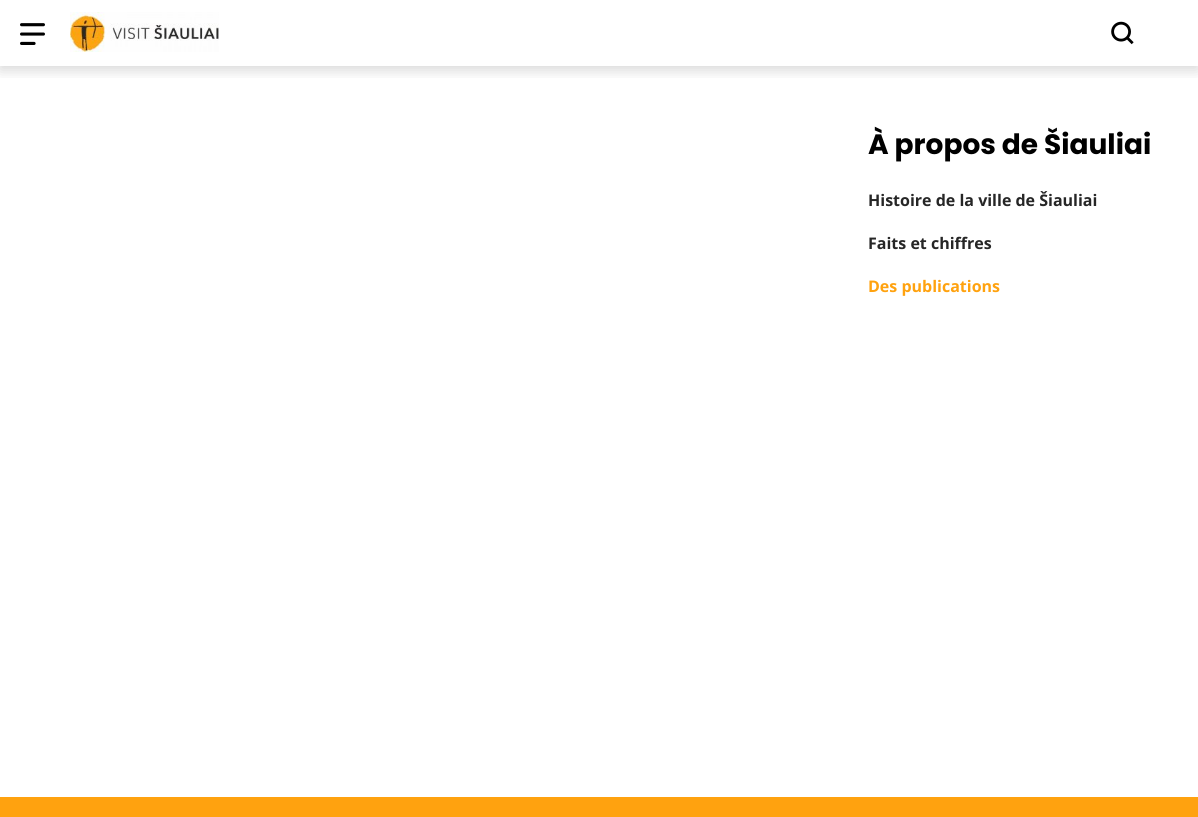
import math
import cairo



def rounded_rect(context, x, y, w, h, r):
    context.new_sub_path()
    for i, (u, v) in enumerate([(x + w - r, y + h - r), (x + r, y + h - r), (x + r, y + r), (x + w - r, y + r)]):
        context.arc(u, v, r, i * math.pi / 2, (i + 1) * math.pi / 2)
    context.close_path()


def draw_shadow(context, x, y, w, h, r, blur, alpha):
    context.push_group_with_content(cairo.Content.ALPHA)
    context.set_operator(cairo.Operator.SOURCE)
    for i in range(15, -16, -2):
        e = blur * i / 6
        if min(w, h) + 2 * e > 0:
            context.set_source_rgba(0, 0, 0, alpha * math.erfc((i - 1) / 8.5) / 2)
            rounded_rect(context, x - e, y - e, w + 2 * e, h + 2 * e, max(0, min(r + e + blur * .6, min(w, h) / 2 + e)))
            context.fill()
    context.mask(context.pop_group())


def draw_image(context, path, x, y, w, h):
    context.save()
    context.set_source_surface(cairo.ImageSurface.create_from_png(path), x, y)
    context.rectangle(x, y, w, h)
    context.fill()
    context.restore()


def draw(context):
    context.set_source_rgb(1, 1, 1)
    context.paint()
    context.save()
    context.rectangle(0, 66, 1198, 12)
    context.clip()
    context.set_source_rgb(0, 0, 0)
    draw_shadow(context, 0, 4, 1198, 66, 0, 7, 0.16)
    context.restore()
    draw_image(context, "images/1.png", 20, 23, 25, 22)
    draw_image(context, "images/2.png", 70, 12, 149, 40)
    draw_image(context, "images/3.png", 1111, 21, 23, 24)
    context.set_source_rgb(1, 162 / 255, 15 / 255)
    context.rectangle(0, 797, 1198, 20)
    context.fill()
    context.select_font_face("Poppins", cairo.FontSlant.NORMAL, cairo.FontWeight.BOLD)
    context.set_font_size(28)
    context.set_source_rgb(0, 0, 0)
    context.move_to(868, 154)
    context.show_text("À propos de Šiauliai")
    context.select_font_face("Open Sans", cairo.FontSlant.NORMAL, cairo.FontWeight.BOLD)
    context.set_font_size(16)
    context.set_source_rgb(38 / 255, 38 / 255, 38 / 255)
    context.move_to(868, 206)
    context.show_text("Histoire de la ville de Šiauliai")
    context.move_to(868, 249)
    context.show_text("Faits et chiffres")
    context.set_source_rgb(1, 162 / 255, 15 / 255)
    context.move_to(868, 292)
    context.show_text("Des publications")


surface = cairo.ImageSurface(cairo.Format.RGB24, 1198, 817)
context = cairo.Context(surface)
options = cairo.FontOptions()
options.set_hint_metrics(cairo.HintMetrics.OFF)
options.set_hint_style(cairo.HintStyle.NONE)
context.set_font_options(options)
context.set_miter_limit(4)
draw(context)
surface.write_to_png("out.png")
